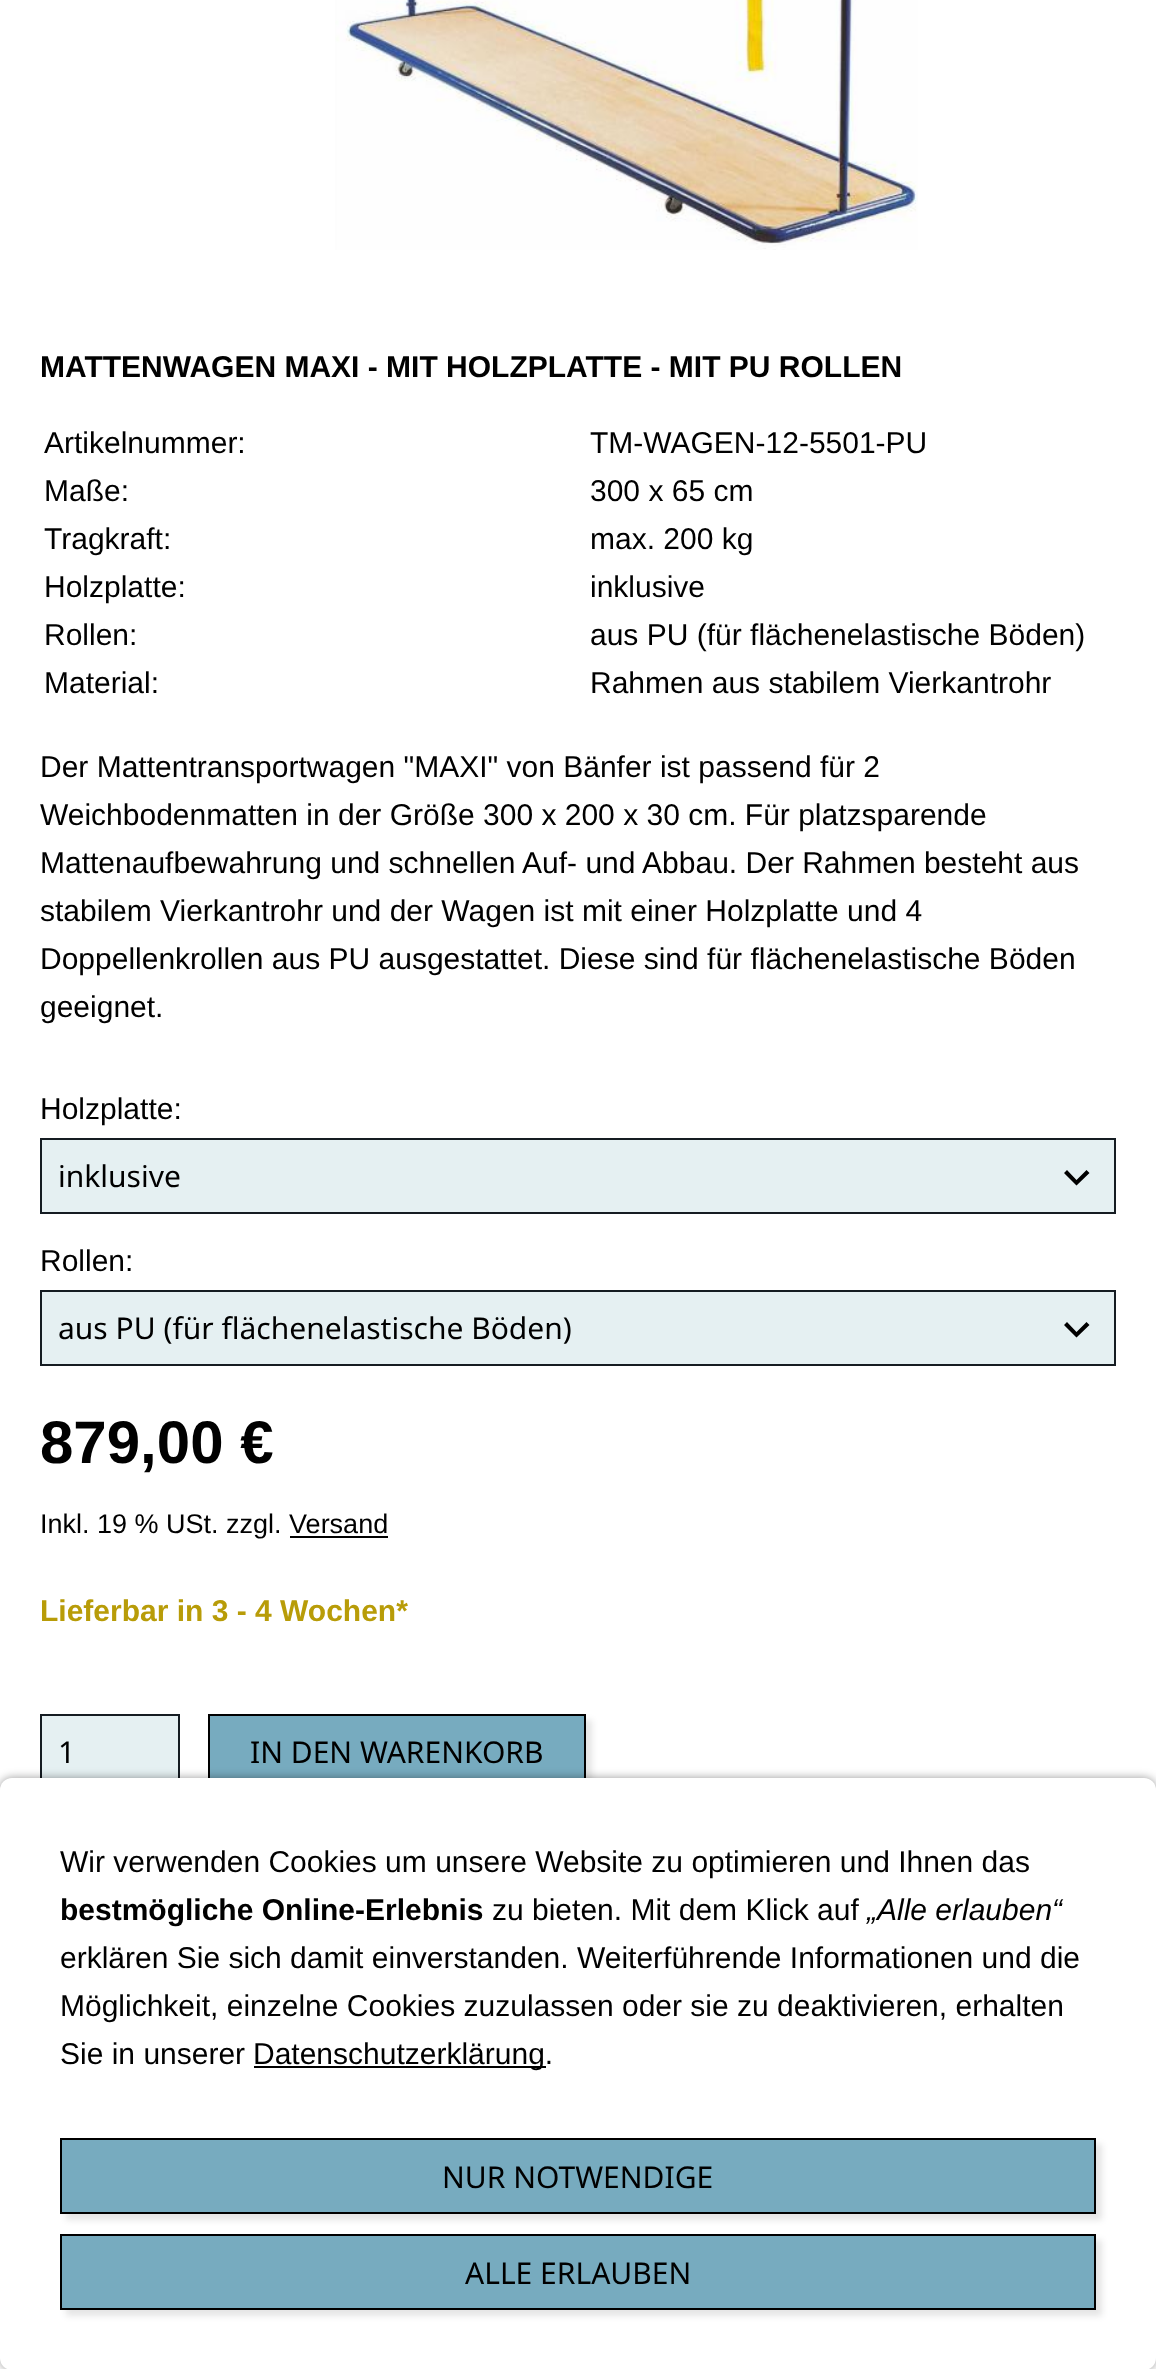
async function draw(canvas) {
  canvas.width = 1156
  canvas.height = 2369
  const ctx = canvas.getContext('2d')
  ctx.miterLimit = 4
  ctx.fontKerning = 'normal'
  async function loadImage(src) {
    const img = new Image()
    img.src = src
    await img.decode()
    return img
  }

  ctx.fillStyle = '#fff'
  ctx.fillRect(0, 0, 1156, 2369)
  ctx.drawImage(await loadImage('image0.png'), 335, 0, 583, 250)
  ctx.font = 'bold 30px Liberation Sans'
  ctx.fillStyle = '#000'
  ctx.fillText('MATTENWAGEN MAXI - MIT HOLZPLATTE - MIT PU ROLLEN', 40, 377)
  ctx.font = '30px Liberation Sans'
  ctx.fillText('Artikelnummer:', 44, 453)
  ctx.fillText('TM-WAGEN-12-5501-PU', 590, 453)
  ctx.fillText('Maße:', 44, 501)
  ctx.fillText('300 x 65 cm', 590, 501)
  ctx.fillText('Tragkraft:', 44, 549)
  ctx.fillText('max. 200 kg', 590, 549)
  ctx.fillText('Holzplatte:', 44, 597)
  ctx.fillText('inklusive', 590, 597)
  ctx.fillText('Rollen:', 44, 645)
  ctx.fillText('aus PU (für flächenelastische Böden)', 590, 645)
  ctx.fillText('Material:', 44, 693)
  ctx.fillText('Rahmen aus stabilem Vierkantrohr', 590, 693)
  ctx.fillText('Der Mattentransportwagen "MAXI" von Bänfer ist passend für 2', 40, 777)
  ctx.fillText('Weichbodenmatten in der Größe 300 x 200 x 30 cm. Für platzsparende', 40, 825)
  ctx.fillText('Mattenaufbewahrung und schnellen Auf- und Abbau. Der Rahmen besteht aus', 40, 873)
  ctx.fillText('stabilem Vierkantrohr und der Wagen ist mit einer Holzplatte und 4', 40, 921)
  ctx.fillText('Doppellenkrollen aus PU ausgestattet. Diese sind für flächenelastische Böden', 40, 969)
  ctx.fillText('geeignet.', 40, 1017)
  ctx.fillText('Holzplatte:', 40, 1119)
  ctx.fillStyle = '#e5f0f2'
  ctx.fillRect(42, 1140, 1072, 72)
  ctx.fillStyle = '#000'
  ctx.beginPath()
  ctx.moveTo(1076.5, 1185.5)
  ctx.lineTo(1064, 1173)
  ctx.lineTo(1067, 1170)
  ctx.lineTo(1076.5, 1180)
  ctx.lineTo(1086.5, 1170)
  ctx.lineTo(1089.5, 1173)
  ctx.closePath()
  ctx.fill()
  ctx.strokeStyle = '#151c22'
  ctx.lineWidth = 2
  ctx.strokeRect(41, 1139, 1074, 74)
  ctx.font = '30px Noto Sans'
  ctx.fillText('inklusive', 58, 1187)
  ctx.font = '30px Liberation Sans'
  ctx.fillText('Rollen:', 40, 1271)
  ctx.fillStyle = '#e5f0f2'
  ctx.fillRect(42, 1292, 1072, 72)
  ctx.fillStyle = '#000'
  ctx.beginPath()
  ctx.moveTo(1076.5, 1337.5)
  ctx.lineTo(1064, 1325)
  ctx.lineTo(1067, 1322)
  ctx.lineTo(1076.5, 1332)
  ctx.lineTo(1086.5, 1322)
  ctx.lineTo(1089.5, 1325)
  ctx.closePath()
  ctx.fill()
  ctx.strokeRect(41, 1291, 1074, 74)
  ctx.font = '30px Noto Sans'
  ctx.fillText('aus PU (für flächenelastische Böden)', 58, 1339)
  ctx.font = 'bold 60px Liberation Sans'
  ctx.fillText('879,00 €', 40, 1463)
  ctx.font = '27px Liberation Sans'
  ctx.fillText('Inkl. 19 % USt. zzgl. Versand', 40, 1533)
  ctx.fillRect(290, 1536, 98, 2)
  ctx.font = 'bold 30px Liberation Sans'
  ctx.fillStyle = '#b89c08'
  ctx.fillText('Lieferbar in 3 - 4 Wochen*', 40, 1621)
  ctx.fillStyle = '#e5f0f2'
  ctx.fillRect(42, 1716, 136, 62)
  ctx.strokeRect(41, 1715, 138, 70)
  ctx.font = '30px Noto Sans'
  ctx.fillStyle = '#000'
  ctx.fillText('1', 58, 1763)
  ctx.fillStyle = '#0000001a'
  ctx.filter = 'blur(3px)'
  ctx.beginPath()
  ctx.rect(214, 1720, 378, 72)
  ctx.fill()
  ctx.filter = 'none'
  ctx.fillStyle = '#77abbf'
  ctx.fillRect(210, 1716, 374, 62)
  ctx.strokeStyle = '#000'
  ctx.strokeRect(209, 1715, 376, 70)
  ctx.fillStyle = '#000'
  ctx.fillText('IN DEN WARENKORB', 250, 1763)
  ctx.fillStyle = '#00000066'
  ctx.filter = 'blur(5px)'
  ctx.beginPath()
  ctx.roundRect(0, 1778, 1156, 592, 12)
  ctx.fill()
  ctx.filter = 'none'
  ctx.fillStyle = '#fff'
  ctx.beginPath()
  ctx.roundRect(0, 1778, 1156, 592, 12)
  ctx.fill()
  ctx.font = '30px Liberation Sans'
  ctx.fillStyle = '#000'
  ctx.fillText('Wir verwenden Cookies um unsere Website zu optimieren und Ihnen das', 60, 1872)
  ctx.font = 'bold 30px Liberation Sans'
  ctx.fillText('bestmögliche Online-Erlebnis', 60, 1920)
  ctx.font = '30px Liberation Sans'
  ctx.fillText('zu bieten. Mit dem Klick auf', 492, 1920)
  ctx.font = 'italic 30px Liberation Sans'
  ctx.fillText('„Alle erlauben“', 867, 1920)
  ctx.font = '30px Liberation Sans'
  ctx.fillText('erklären Sie sich damit einverstanden. Weiterführende Informationen und die', 60, 1968)
  ctx.fillText('Möglichkeit, einzelne Cookies zuzulassen oder sie zu deaktivieren, erhalten', 60, 2016)
  ctx.fillText('Sie in unserer', 60, 2064)
  ctx.fillRect(254, 2066, 292, 2)
  ctx.fillText('Datenschutzerklärung.', 253, 2064)
  ctx.fillStyle = '#0000001a'
  ctx.filter = 'blur(3px)'
  ctx.beginPath()
  ctx.rect(66, 2144, 1036, 76)
  ctx.fill()
  ctx.filter = 'none'
  ctx.fillStyle = '#77abbf'
  ctx.beginPath()
  ctx.rect(61, 2139, 1034, 74)
  ctx.fill()
  ctx.stroke()
  ctx.font = '30px Noto Sans'
  ctx.fillStyle = '#000'
  ctx.fillText('NUR NOTWENDIGE', 442, 2188)
  ctx.fillStyle = '#0000001a'
  ctx.filter = 'blur(3px)'
  ctx.beginPath()
  ctx.rect(66, 2240, 1036, 76)
  ctx.fill()
  ctx.filter = 'none'
  ctx.fillStyle = '#77abbf'
  ctx.beginPath()
  ctx.rect(61, 2235, 1034, 74)
  ctx.fill()
  ctx.stroke()
  ctx.fillStyle = '#000'
  ctx.fillText('ALLE ERLAUBEN', 465, 2284)
}

draw(document.querySelector('canvas'))
